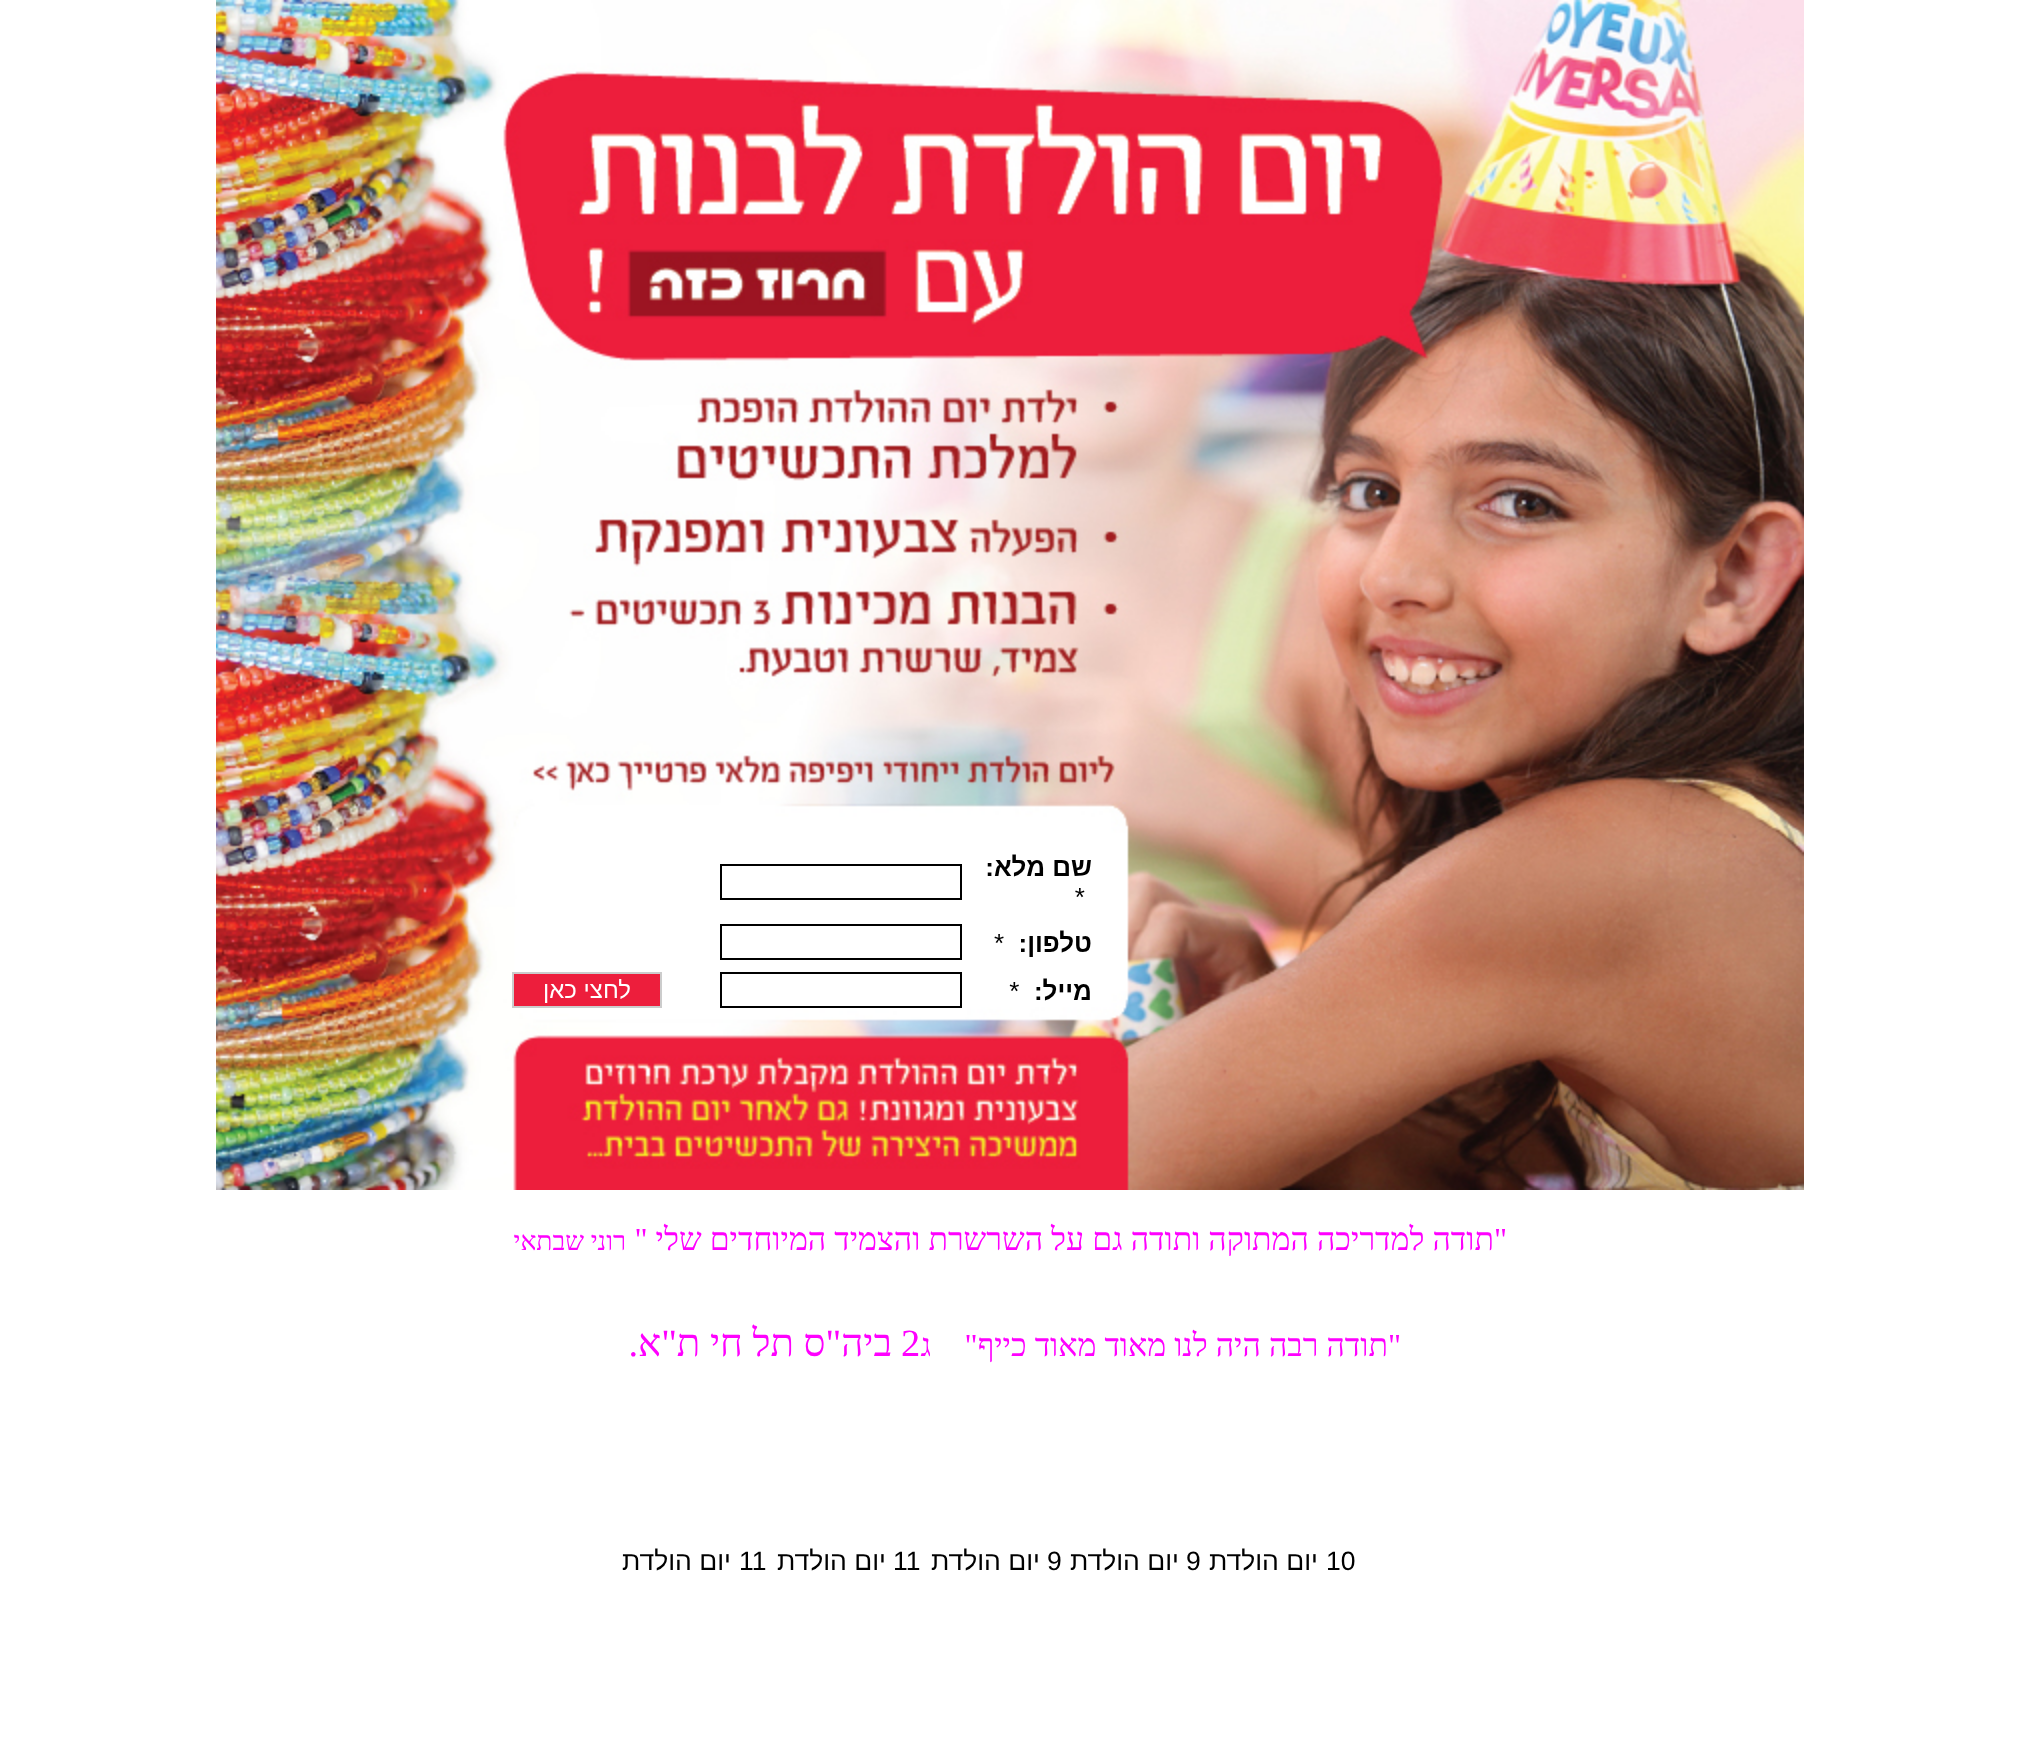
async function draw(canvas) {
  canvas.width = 2019
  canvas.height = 1744
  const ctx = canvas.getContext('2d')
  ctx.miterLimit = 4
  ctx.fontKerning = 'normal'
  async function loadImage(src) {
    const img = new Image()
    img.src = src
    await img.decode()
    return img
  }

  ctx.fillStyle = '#fff'
  ctx.fillRect(0, 0, 2019, 1744)
  ctx.drawImage(await loadImage('image0.png'), 216, 0, 1588, 1190)
  ctx.drawImage(await loadImage('image1.png'), 512, 854, 579, 154)
  ctx.direction = 'rtl'
  ctx.font = '32px Liberation Serif'
  ctx.fillStyle = '#f0f'
  ctx.fillText('"תודה למדריכה המתוקה ותודה גם על השרשרת והצמיד המיוחדים שלי "', 1507, 1250)
  ctx.font = '26.5px Liberation Serif'
  ctx.fillText('רוני', 626, 1250)
  ctx.fillText('שבתאי', 584, 1250)
  ctx.font = '32px Liberation Serif'
  ctx.fillText('"תודה רבה היה לנו מאוד מאוד כייף"', 1401, 1356)
  ctx.fillText('ג', 931, 1356)
  ctx.direction = 'ltr'
  ctx.font = '38.5px Liberation Serif'
  ctx.fillText('2', 901, 1356)
  ctx.direction = 'rtl'
  ctx.fillText('ביה"ס תל חי ת"א.', 892, 1356)
  ctx.direction = 'ltr'
  ctx.font = '26.5px Liberation Sans'
  ctx.fillStyle = '#000'
  ctx.fillText('10', 1326, 1570)
  ctx.direction = 'rtl'
  ctx.fillText('יום הולדת', 1318, 1570)
  ctx.direction = 'ltr'
  ctx.fillText('9', 1186, 1570)
  ctx.direction = 'rtl'
  ctx.fillText('יום הולדת', 1179, 1570)
  ctx.direction = 'ltr'
  ctx.fillText('9', 1047, 1570)
  ctx.direction = 'rtl'
  ctx.fillText('יום הולדת', 1040, 1570)
  ctx.direction = 'ltr'
  ctx.fillText('11', 893, 1570)
  ctx.direction = 'rtl'
  ctx.fillText('יום הולדת', 886, 1570)
  ctx.direction = 'ltr'
  ctx.fillText('11', 739, 1570)
  ctx.direction = 'rtl'
  ctx.fillText('יום הולדת', 731, 1570)
}

draw(document.querySelector('canvas'))
